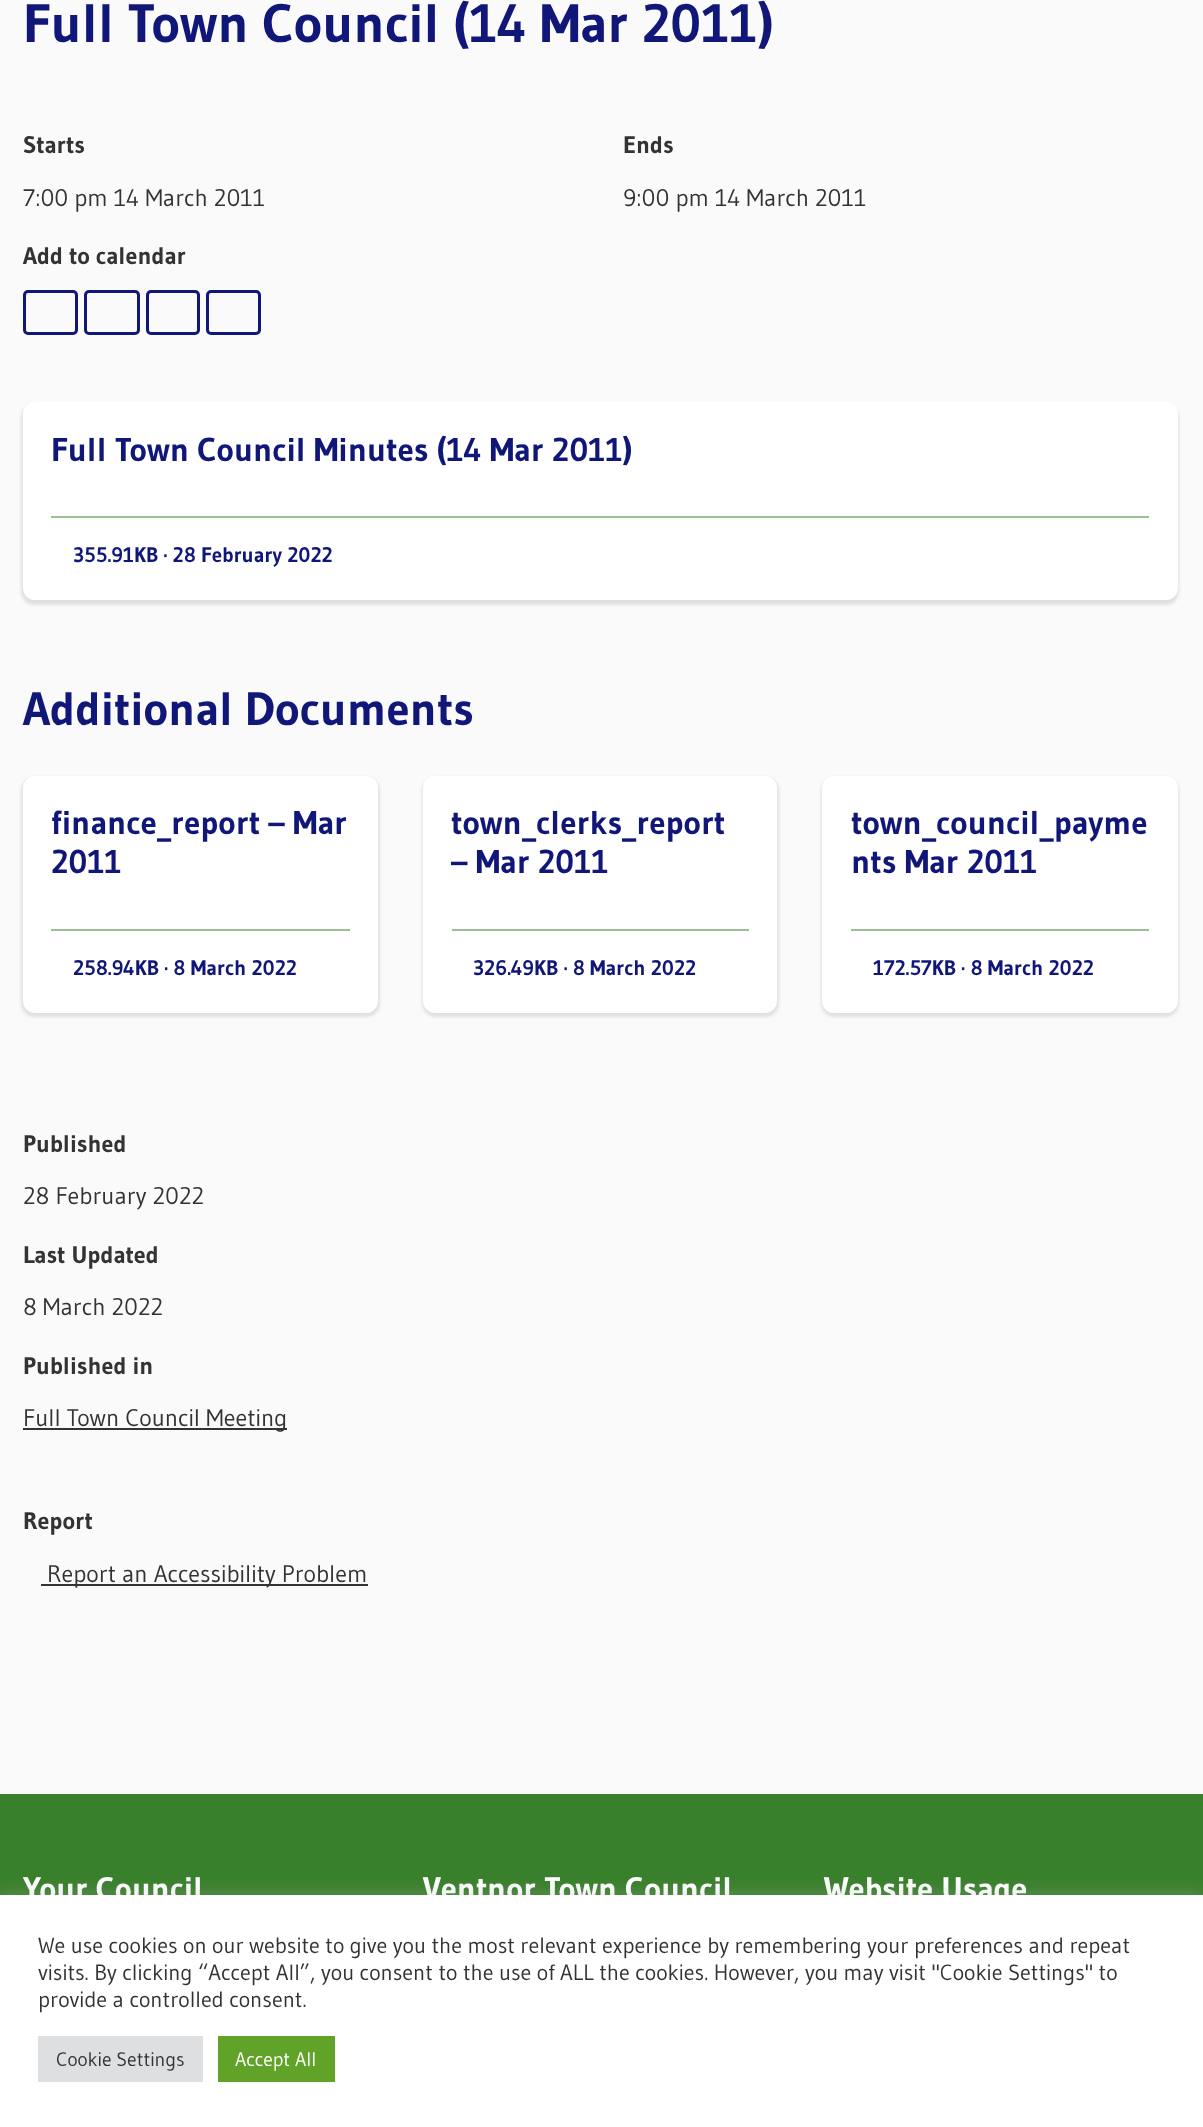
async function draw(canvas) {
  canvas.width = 1203
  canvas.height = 2127
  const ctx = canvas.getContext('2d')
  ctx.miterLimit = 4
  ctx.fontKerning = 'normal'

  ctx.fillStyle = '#fafafa'
  ctx.fillRect(0, 0, 1203, 2127)
  ctx.font = 'bold 54px Gudea'
  ctx.fillStyle = '#111779'
  ctx.fillText('Full Town Council (14 Mar 2011)', 23, 42)
  ctx.font = 'bold 24px Gudea'
  ctx.fillStyle = '#333'
  ctx.fillText('Starts', 23, 153)
  ctx.font = '24px Gudea'
  ctx.fillText('7:00 pm 14 March 2011', 23, 206)
  ctx.font = 'bold 24px Gudea'
  ctx.fillText('Ends', 623, 153)
  ctx.font = '24px Gudea'
  ctx.fillText('9:00 pm 14 March 2011', 623, 206)
  ctx.font = 'bold 24px Gudea'
  ctx.fillText('Add to calendar', 23, 264)
  ctx.beginPath()
  ctx.roundRect(24.5, 291.5, 52, 42, 3.5)
  ctx.strokeStyle = '#111779'
  ctx.lineWidth = 3
  ctx.stroke()
  ctx.beginPath()
  ctx.roundRect(85.5, 291.5, 53, 42, 3.5)
  ctx.stroke()
  ctx.beginPath()
  ctx.roundRect(147.5, 291.5, 51, 42, 3.5)
  ctx.stroke()
  ctx.beginPath()
  ctx.roundRect(207.5, 291.5, 52, 42, 3.5)
  ctx.stroke()
  ctx.fillStyle = '#0000001a'
  ctx.filter = 'blur(1.5px)'
  ctx.beginPath()
  ctx.roundRect(21, 404, 1158, 201, 14)
  ctx.fill()
  ctx.filter = 'none'
  ctx.fillStyle = '#fff'
  ctx.beginPath()
  ctx.roundRect(26, 405, 1149, 192, 9)
  ctx.fill()
  ctx.strokeStyle = '#fff'
  ctx.lineWidth = 6
  ctx.stroke()
  ctx.font = 'bold 33px Gudea'
  ctx.fillStyle = '#111779'
  ctx.fillText('Full Town Council Minutes (14 Mar 2011)', 51, 461)
  ctx.fillStyle = '#9cc096'
  ctx.fillRect(51, 516, 1098, 2)
  ctx.font = 'bold 21px Gudea'
  ctx.fillStyle = '#111779'
  ctx.fillText('355.91KB · 28 February 2022', 73, 562)
  ctx.font = 'bold 46.75px Gudea'
  ctx.fillText('Additional Documents', 23, 725)
  ctx.fillStyle = '#0000001a'
  ctx.filter = 'blur(1.5px)'
  ctx.beginPath()
  ctx.roundRect(21, 777, 359, 240, 14)
  ctx.fill()
  ctx.filter = 'none'
  ctx.fillStyle = '#fff'
  ctx.beginPath()
  ctx.roundRect(26, 779, 349, 231, 9)
  ctx.fill()
  ctx.stroke()
  ctx.font = 'bold 33px Gudea'
  ctx.fillStyle = '#111779'
  ctx.fillText('finance_report – Mar', 51, 834)
  ctx.fillText('2011', 51, 873)
  ctx.fillStyle = '#9cc096'
  ctx.fillRect(51, 929, 299, 2)
  ctx.font = 'bold 21px Gudea'
  ctx.fillStyle = '#111779'
  ctx.fillText('258.94KB · 8 March 2022', 73, 975)
  ctx.fillStyle = '#0000001a'
  ctx.filter = 'blur(1.5px)'
  ctx.beginPath()
  ctx.roundRect(422, 777, 357, 240, 14)
  ctx.fill()
  ctx.filter = 'none'
  ctx.fillStyle = '#fff'
  ctx.beginPath()
  ctx.roundRect(426, 779, 348, 231, 9)
  ctx.fill()
  ctx.stroke()
  ctx.font = 'bold 33px Gudea'
  ctx.fillStyle = '#111779'
  ctx.fillText('town_clerks_report', 451, 834)
  ctx.fillText('– Mar 2011', 451, 873)
  ctx.fillStyle = '#9cc096'
  ctx.fillRect(452, 929, 297, 2)
  ctx.font = 'bold 21px Gudea'
  ctx.fillStyle = '#111779'
  ctx.fillText('326.49KB · 8 March 2022', 473, 975)
  ctx.fillStyle = '#0000001a'
  ctx.filter = 'blur(1.5px)'
  ctx.beginPath()
  ctx.roundRect(821, 777, 358, 240, 14)
  ctx.fill()
  ctx.filter = 'none'
  ctx.fillStyle = '#fff'
  ctx.beginPath()
  ctx.roundRect(825, 779, 350, 231, 9)
  ctx.fill()
  ctx.stroke()
  ctx.font = 'bold 33px Gudea'
  ctx.fillStyle = '#111779'
  ctx.fillText('town_council_payme', 851, 834)
  ctx.fillText('nts Mar 2011', 851, 873)
  ctx.fillStyle = '#9cc096'
  ctx.fillRect(851, 929, 298, 2)
  ctx.font = 'bold 21px Gudea'
  ctx.fillStyle = '#111779'
  ctx.fillText('172.57KB · 8 March 2022', 873, 975)
  ctx.font = 'bold 24px Gudea'
  ctx.fillStyle = '#333'
  ctx.fillText('Published', 23, 1152)
  ctx.font = '24px Gudea'
  ctx.fillText('28 February 2022', 23, 1204)
  ctx.font = 'bold 24px Gudea'
  ctx.fillText('Last Updated', 23, 1263)
  ctx.font = '24px Gudea'
  ctx.fillText('8 March 2022', 23, 1315)
  ctx.font = 'bold 24px Gudea'
  ctx.fillText('Published in', 23, 1374)
  ctx.fillRect(23, 1428, 264, 2)
  ctx.font = '24px Gudea'
  ctx.fillText('Full Town Council Meeting', 23, 1426)
  ctx.font = 'bold 24px Gudea'
  ctx.fillText('Report', 23, 1529)
  ctx.fillRect(41, 1584, 327, 2)
  ctx.font = '24px Gudea'
  ctx.fillText('Report an Accessibility Problem', 47, 1582)
  ctx.fillStyle = '#39802c'
  ctx.fillRect(0, 1794, 1203, 101)
  ctx.font = 'bold 32.5px Gudea'
  ctx.fillStyle = '#fff'
  ctx.fillText('Your Council', 23, 1900)
  ctx.fillText('Ventnor Town Council', 423, 1900)
  ctx.fillText('Website Usage', 824, 1900)
  ctx.fillStyle = '#acabab4d'
  ctx.filter = 'blur(7.5px)'
  ctx.beginPath()
  ctx.rect(0, 1893, 1203, 233)
  ctx.fill()
  ctx.filter = 'none'
  ctx.fillStyle = '#fff'
  ctx.fillRect(0, 1895, 1203, 232)
  ctx.font = '22px Gudea'
  ctx.fillStyle = '#333'
  ctx.fillText('We use cookies on our website to give you the most relevant experience by remembering your preferences and repeat', 38, 1953)
  ctx.fillText('visits. By clicking “Accept All”, you consent to the use of ALL the cookies. However, you may visit "Cookie Settings" to', 38, 1980)
  ctx.fillText('provide a controlled consent.', 38, 2007)
  ctx.fillStyle = '#dedfe0'
  ctx.fillRect(38, 2036, 165, 46)
  ctx.font = '19.5px Gudea'
  ctx.fillStyle = '#333'
  ctx.fillText('Cookie Settings', 56, 2066)
  ctx.fillStyle = '#61a229'
  ctx.fillRect(218, 2036, 117, 46)
  ctx.fillStyle = '#fff'
  ctx.fillText('Accept All', 235, 2066)
}

draw(document.querySelector('canvas'))
